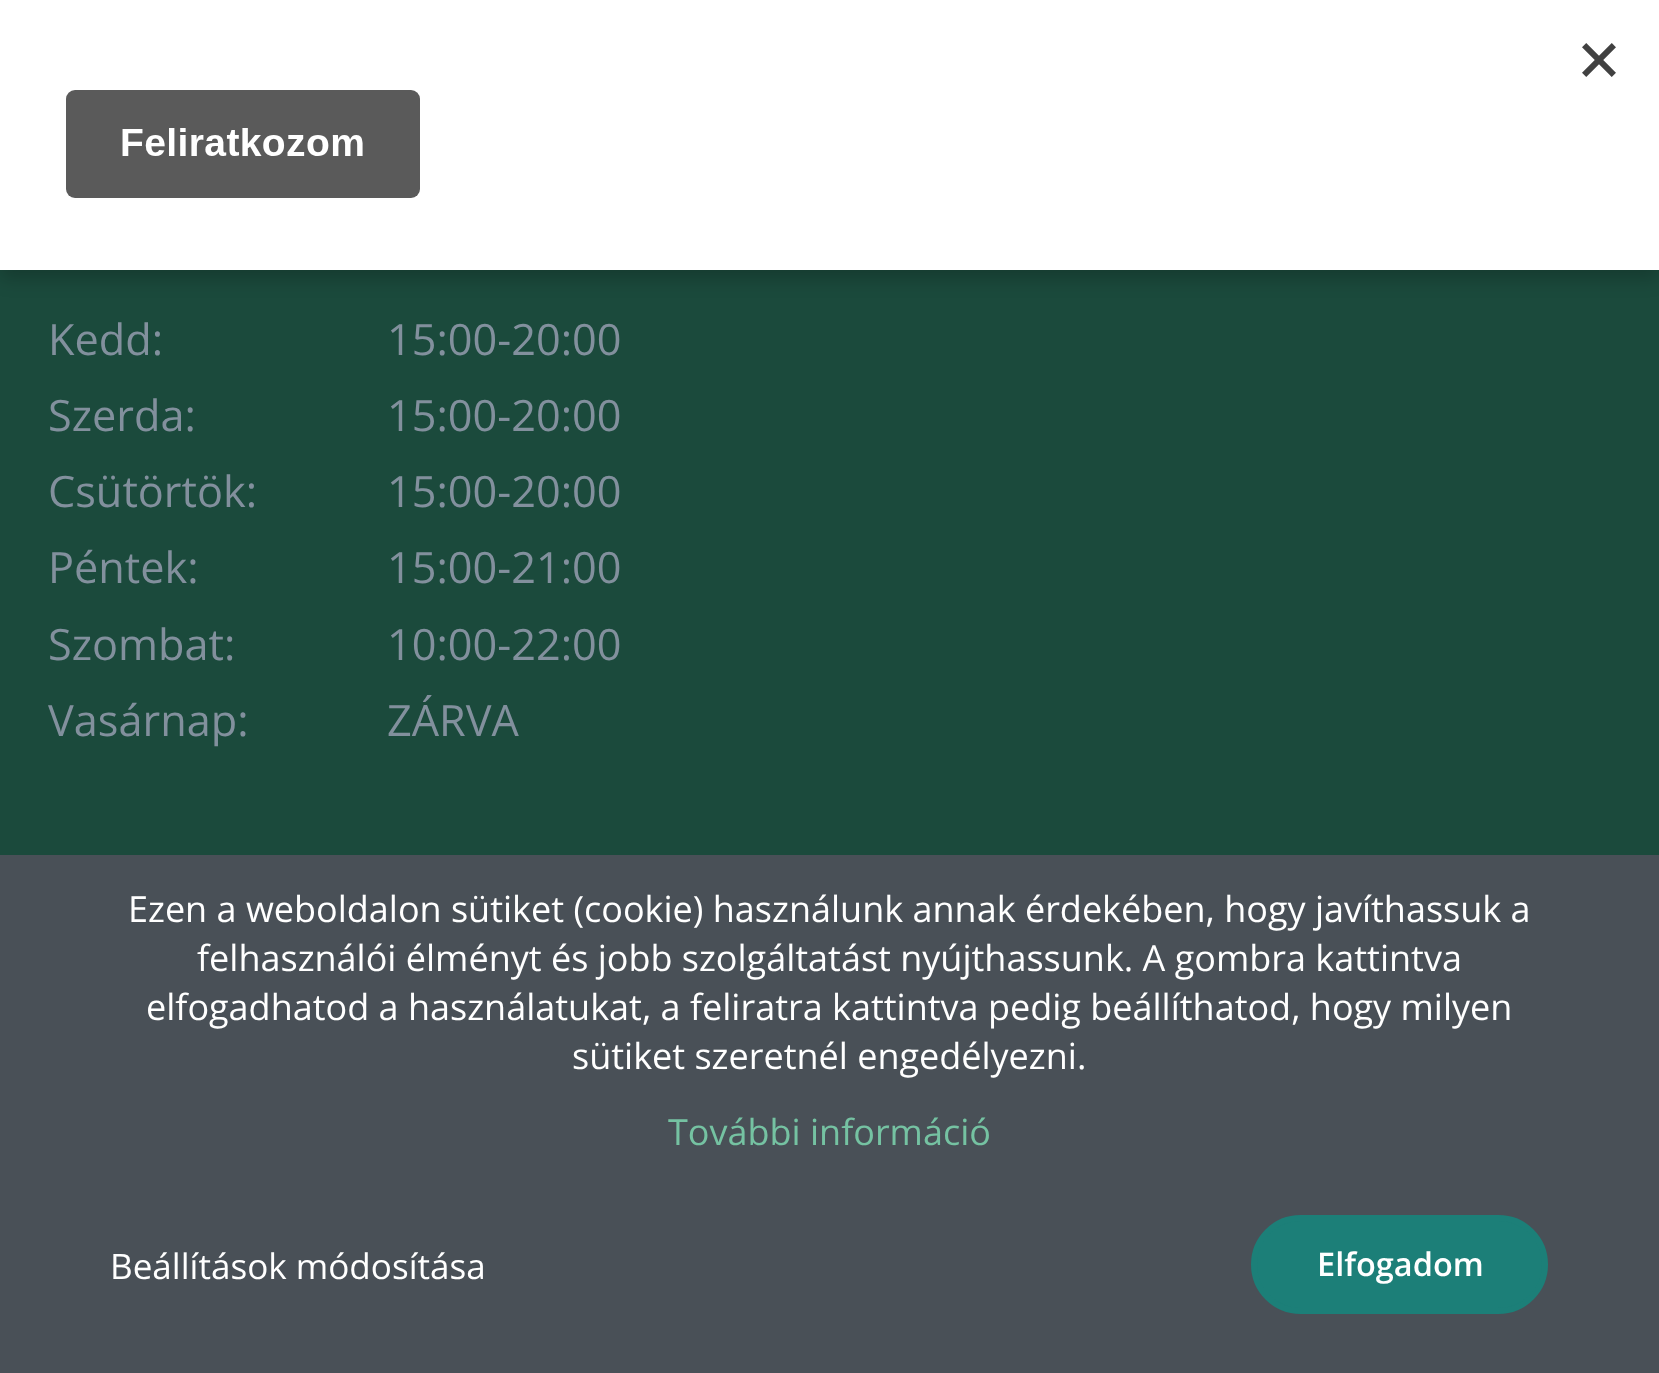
async function draw(canvas) {
  canvas.width = 1659
  canvas.height = 1373
  const ctx = canvas.getContext('2d')
  ctx.miterLimit = 4
  ctx.fontKerning = 'normal'
  async function loadImage(src) {
    const img = new Image()
    img.src = src
    await img.decode()
    return img
  }

  ctx.fillStyle = '#1b4a3c'
  ctx.fillRect(0, 0, 1659, 1373)
  ctx.fillStyle = '#00000033'
  ctx.filter = 'blur(9px)'
  ctx.beginPath()
  ctx.rect(0, 9, 1659, 270)
  ctx.fill()
  ctx.filter = 'none'
  ctx.fillStyle = '#fff'
  ctx.fillRect(0, 0, 1659, 270)
  ctx.drawImage(await loadImage('image0.png'), 66, 43, 1550, 155)
  ctx.font = '43.25px Open Sans'
  ctx.fillStyle = '#82909d'
  ctx.fillText('Kedd:', 48, 355)
  ctx.fillText('15:00-20:00', 387, 355)
  ctx.fillText('Szerda:', 48, 431)
  ctx.fillText('15:00-20:00', 387, 431)
  ctx.fillText('Csütörtök:', 48, 507)
  ctx.fillText('15:00-20:00', 387, 507)
  ctx.fillText('Péntek:', 48, 583)
  ctx.fillText('15:00-21:00', 387, 583)
  ctx.fillText('Szombat:', 48, 660)
  ctx.fillText('10:00-22:00', 387, 660)
  ctx.fillText('Vasárnap:', 48, 736)
  ctx.fillText('ZÁRVA', 387, 736)
  ctx.fillStyle = '#495057'
  ctx.fillRect(0, 855, 1659, 518)
  ctx.font = '36px Open Sans'
  ctx.fillStyle = '#fff'
  ctx.fillText('Ezen a weboldalon sütiket (cookie) használunk annak érdekében, hogy javíthassuk a', 128, 922)
  ctx.fillText('felhasználói élményt és jobb szolgáltatást nyújthassunk. A gombra kattintva', 197, 971)
  ctx.fillText('elfogadhatod a használatukat, a feliratra kattintva pedig beállíthatod, hogy milyen', 146, 1020)
  ctx.fillText('sütiket szeretnél engedélyezni.', 572, 1069)
  ctx.fillStyle = '#75c2a2'
  ctx.fillText('További információ', 668, 1145)
  ctx.font = '35.1px Open Sans'
  ctx.fillStyle = '#fff'
  ctx.fillText('Beállítások módosítása', 110, 1279)
  ctx.fillStyle = '#1c7f78'
  ctx.beginPath()
  ctx.roundRect(1254, 1218, 291, 93, 46.5)
  ctx.fill()
  ctx.strokeStyle = '#1c7f78'
  ctx.lineWidth = 6
  ctx.stroke()
  ctx.font = '600 32.5px Open Sans'
  ctx.fillStyle = '#fff'
  ctx.fillText('Elfogadom', 1317, 1276)
}

draw(document.querySelector('canvas'))
